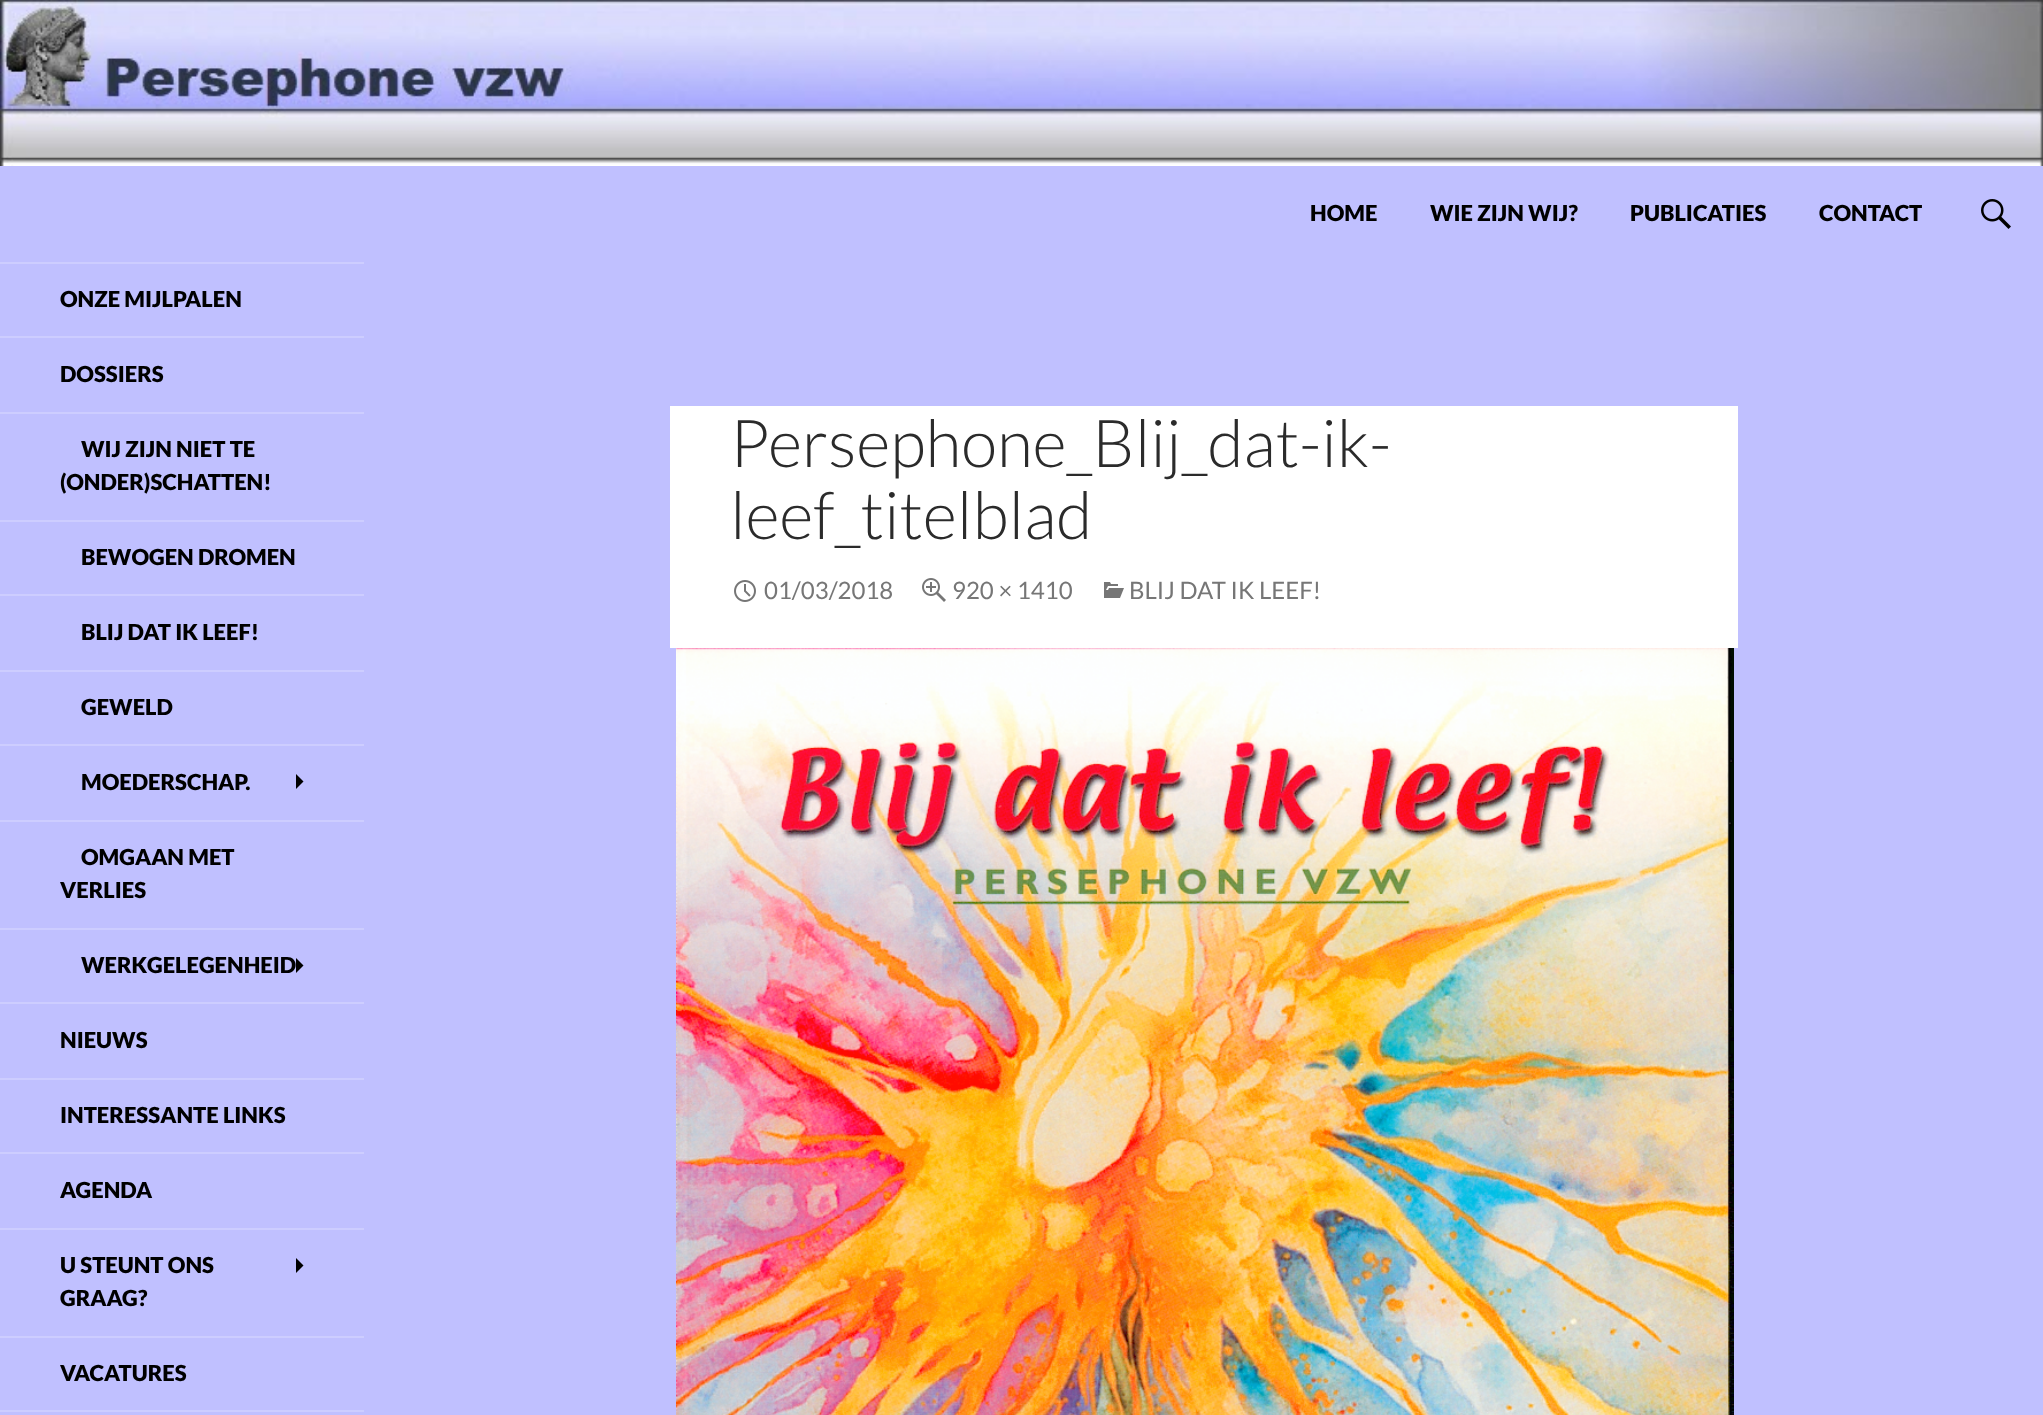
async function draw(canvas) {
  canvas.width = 2043
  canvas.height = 1415
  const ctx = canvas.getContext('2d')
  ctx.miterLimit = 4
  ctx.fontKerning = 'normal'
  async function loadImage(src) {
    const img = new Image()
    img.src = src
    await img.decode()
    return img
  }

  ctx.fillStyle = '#c0c0ff'
  ctx.fillRect(0, 0, 2043, 1415)
  ctx.drawImage(await loadImage('image0.png'), 0, 0, 2043, 166)
  ctx.font = '900 22px Lato'
  ctx.fillStyle = '#000'
  ctx.fillText('HOME', 1310, 221)
  ctx.fillText('WIE ZIJN WIJ?', 1430, 221)
  ctx.fillText('PUBLICATIES', 1630, 221)
  ctx.fillText('CONTACT', 1819, 221)
  ctx.drawImage(await loadImage('image1.png'), 1981, 199, 30, 30)
  ctx.fillStyle = '#cdcdff'
  ctx.fillRect(0, 262, 364, 2)
  ctx.fillStyle = '#000'
  ctx.fillText('ONZE MIJLPALEN', 60, 307)
  ctx.fillStyle = '#cdcdff'
  ctx.fillRect(0, 336, 364, 2)
  ctx.fillStyle = '#000'
  ctx.fillText('DOSSIERS', 60, 382)
  ctx.fillStyle = '#cdcdff'
  ctx.fillRect(0, 412, 364, 2)
  ctx.fillStyle = '#000'
  ctx.fillText('WIJ ZIJN NIET TE', 81, 457)
  ctx.fillText('(ONDER)SCHATTEN!', 60, 490)
  ctx.fillStyle = '#cdcdff'
  ctx.fillRect(0, 520, 364, 2)
  ctx.fillStyle = '#000'
  ctx.fillText('BEWOGEN DROMEN', 81, 565)
  ctx.fillStyle = '#cdcdff'
  ctx.fillRect(0, 594, 364, 2)
  ctx.fillStyle = '#000'
  ctx.fillText('BLIJ DAT IK LEEF!', 81, 640)
  ctx.fillStyle = '#cdcdff'
  ctx.fillRect(0, 670, 364, 2)
  ctx.fillStyle = '#000'
  ctx.fillText('GEWELD', 81, 715)
  ctx.fillStyle = '#cdcdff'
  ctx.fillRect(0, 744, 364, 2)
  ctx.fillStyle = '#000'
  ctx.fillText('MOEDERSCHAP.', 81, 790)
  ctx.beginPath()
  ctx.moveTo(296, 789)
  ctx.lineTo(303.5, 781.5)
  ctx.lineTo(296, 774)
  ctx.closePath()
  ctx.fill()
  ctx.fillStyle = '#cdcdff'
  ctx.fillRect(0, 820, 364, 2)
  ctx.fillStyle = '#000'
  ctx.fillText('OMGAAN MET', 81, 865)
  ctx.fillText('VERLIES', 60, 898)
  ctx.fillStyle = '#cdcdff'
  ctx.fillRect(0, 928, 364, 2)
  ctx.fillStyle = '#000'
  ctx.fillText('WERKGELEGENHEID', 81, 973)
  ctx.beginPath()
  ctx.moveTo(296, 973)
  ctx.lineTo(303.5, 965.5)
  ctx.lineTo(296, 958)
  ctx.closePath()
  ctx.fill()
  ctx.fillStyle = '#cdcdff'
  ctx.fillRect(0, 1002, 364, 2)
  ctx.fillStyle = '#000'
  ctx.fillText('NIEUWS', 60, 1048)
  ctx.fillStyle = '#cdcdff'
  ctx.fillRect(0, 1078, 364, 2)
  ctx.fillStyle = '#000'
  ctx.fillText('INTERESSANTE LINKS', 60, 1123)
  ctx.fillStyle = '#cdcdff'
  ctx.fillRect(0, 1152, 364, 2)
  ctx.fillStyle = '#000'
  ctx.fillText('AGENDA', 60, 1198)
  ctx.fillStyle = '#cdcdff'
  ctx.fillRect(0, 1228, 364, 2)
  ctx.fillStyle = '#000'
  ctx.fillText('U STEUNT ONS', 60, 1273)
  ctx.beginPath()
  ctx.moveTo(296, 1273)
  ctx.lineTo(303.5, 1265.5)
  ctx.lineTo(296, 1258)
  ctx.closePath()
  ctx.fill()
  ctx.fillText('GRAAG?', 60, 1306)
  ctx.fillStyle = '#cdcdff'
  ctx.fillRect(0, 1336, 364, 2)
  ctx.fillStyle = '#000'
  ctx.fillText('VACATURES', 60, 1381)
  ctx.fillStyle = '#cdcdff'
  ctx.fillRect(0, 1410, 364, 2)
  ctx.fillStyle = '#fff'
  ctx.fillRect(670, 406, 1068, 242)
  ctx.font = '300 66px Lato'
  ctx.fillStyle = '#2b2b2b'
  ctx.fillText('Persephone_Blij_dat-ik-', 730, 467)
  ctx.fillText('leef_titelblad', 730, 539)
  ctx.drawImage(await loadImage('image2.png'), 734, 580, 22, 22)
  ctx.font = '24px Lato'
  ctx.fillStyle = '#767676'
  ctx.fillText('01/03/2018', 764, 599)
  ctx.drawImage(await loadImage('image3.png'), 922, 578, 24, 24)
  ctx.fillText('920 × 1410', 952, 599)
  ctx.drawImage(await loadImage('image4.png'), 1104, 582, 20, 16)
  ctx.fillText('BLIJ DAT IK LEEF!', 1129, 599)
  ctx.drawImage(await loadImage('image5.png'), 676, 648, 1058, 767)
}

draw(document.querySelector('canvas'))
